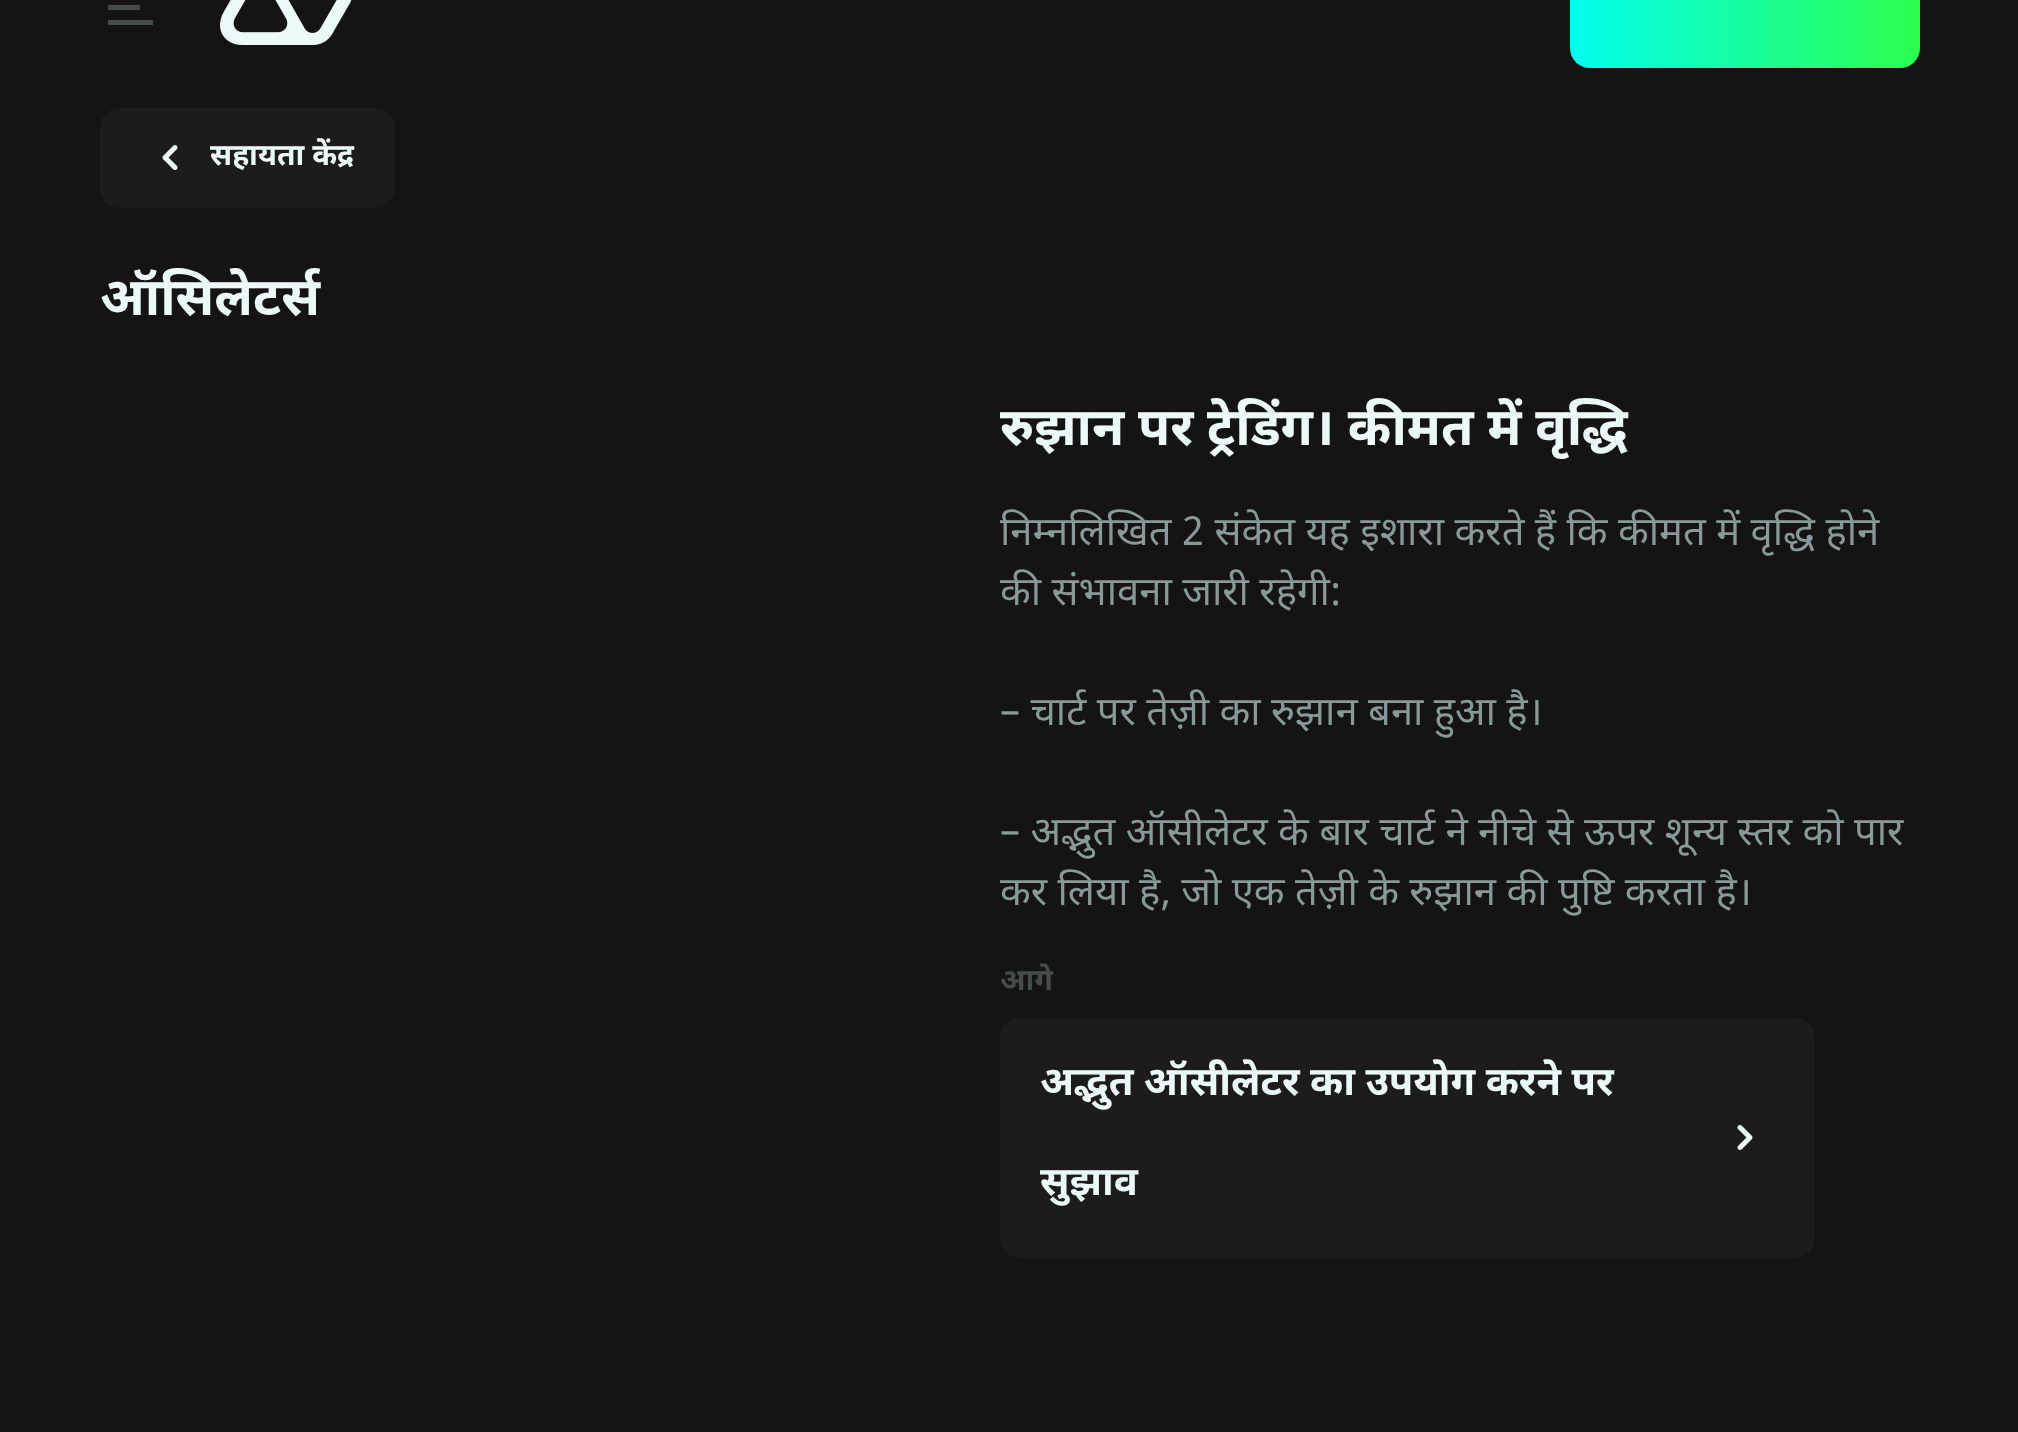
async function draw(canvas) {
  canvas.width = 2018
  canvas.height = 1432
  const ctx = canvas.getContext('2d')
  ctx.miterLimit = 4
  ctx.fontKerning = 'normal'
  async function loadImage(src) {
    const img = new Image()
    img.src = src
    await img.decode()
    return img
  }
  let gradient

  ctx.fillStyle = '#141414'
  ctx.fillRect(0, 0, 2018, 1432)
  ctx.fillStyle = '#464c4c'
  ctx.fillRect(108, 5, 32, 5)
  ctx.fillRect(108, 20, 45, 5)
  ctx.drawImage(await loadImage('image0.png'), 220, 0, 132, 45)
  gradient = ctx.createLinearGradient(1570, 7.5, 1920, 7.5)
  gradient.addColorStop(0, '#01feef')
  gradient.addColorStop(1, '#2dfe4d')
  ctx.fillStyle = gradient
  ctx.beginPath()
  ctx.roundRect(1570, -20, 350, 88, 20)
  ctx.fill()
  ctx.fillStyle = '#1c1c1c'
  ctx.beginPath()
  ctx.roundRect(100, 108, 295, 100, 20)
  ctx.fill()
  ctx.drawImage(await loadImage('image1.png'), 162, 145, 16, 25)
  ctx.font = 'bold 30px Noto Sans Devanagari'
  ctx.fillStyle = '#ecf9f9'
  ctx.fillText('सहायता केंद्र', 210, 165)
  ctx.font = 'bold 52.5px Noto Sans Devanagari'
  ctx.fillText('ऑसिलेटर्स', 100, 315)
  ctx.fillText('रुझान पर ट्रेडिंग। कीमत में वृद्धि', 1000, 445)
  ctx.font = '40px Noto Sans Devanagari'
  ctx.fillStyle = '#899898'
  ctx.fillText('निम्नलिखित 2 संकेत यह इशारा करते हैं कि कीमत में वृद्धि होने', 1000, 545)
  ctx.fillText('की संभावना जारी रहेगी:', 1000, 605)
  ctx.fillText('– चार्ट पर तेज़ी का रुझान बना हुआ है।', 1000, 725)
  ctx.fillText('– अद्भुत ऑसीलेटर के बार चार्ट ने नीचे से ऊपर शून्य स्तर को पार', 1000, 845)
  ctx.fillText('कर लिया है, जो एक तेज़ी के रुझान की पुष्टि करता है।', 1000, 905)
  ctx.font = 'bold 30px Noto Sans Devanagari'
  ctx.fillStyle = '#464c4c'
  ctx.fillText('आगे', 1000, 990)
  ctx.fillStyle = '#1c1c1c'
  ctx.beginPath()
  ctx.roundRect(1000, 1018, 815, 240, 20)
  ctx.fill()
  ctx.font = 'bold 40px Noto Sans Devanagari'
  ctx.fillStyle = '#ecf9f9'
  ctx.fillText('अद्भुत ऑसीलेटर का उपयोग करने पर', 1040, 1095)
  ctx.fillText('सुझाव', 1040, 1195)
  ctx.drawImage(await loadImage('image2.png'), 1737, 1125, 16, 25)
}

draw(document.querySelector('canvas'))
